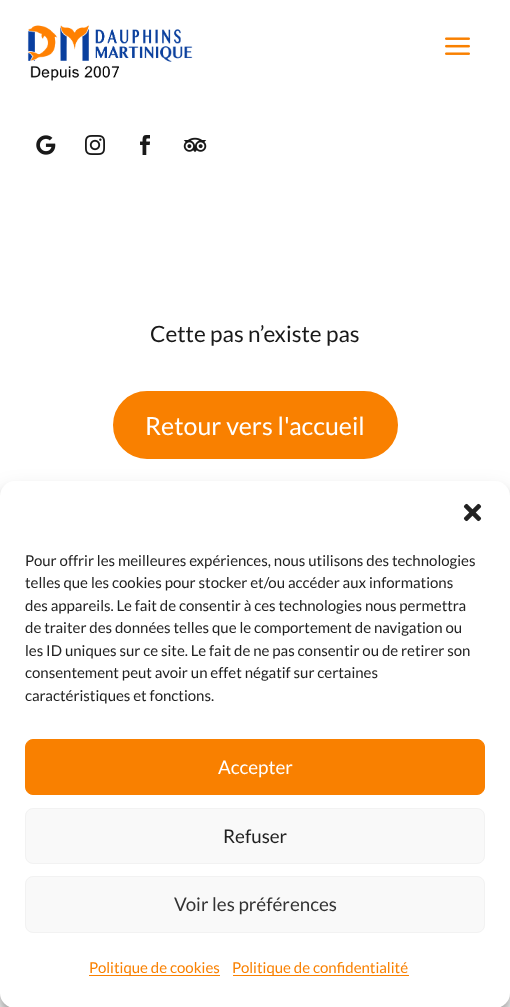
async function draw(canvas) {
  canvas.width = 510
  canvas.height = 1007
  const ctx = canvas.getContext('2d')
  ctx.miterLimit = 4
  ctx.fontKerning = 'normal'
  async function loadImage(src) {
    const img = new Image()
    img.src = src
    await img.decode()
    return img
  }

  ctx.fillStyle = '#fff'
  ctx.fillRect(0, 0, 510, 1007)
  ctx.drawImage(await loadImage('image0.png'), 27, 25, 166, 56)
  ctx.drawImage(await loadImage('image1.png'), 445, 37, 25, 18)
  ctx.fillStyle = '#0000004d'
  ctx.filter = 'blur(11px)'
  ctx.beginPath()
  ctx.roundRect(8, 940, 62, 64, 31)
  ctx.fill()
  ctx.filter = 'none'
  ctx.drawImage(await loadImage('image2.png'), 36, 135, 20, 20)
  ctx.drawImage(await loadImage('image3.png'), 85, 135, 20, 20)
  ctx.drawImage(await loadImage('image4.png'), 140, 135, 10, 20)
  ctx.drawImage(await loadImage('image5.png'), 183, 137, 24, 16)
  ctx.font = '22.5px Lato'
  ctx.fillStyle = '#191919'
  ctx.fillText('Cette pas n’existe pas', 150, 342)
  ctx.fillStyle = '#f98000'
  ctx.beginPath()
  ctx.roundRect(114.5, 392.5, 282, 65, 32.5)
  ctx.fill()
  ctx.strokeStyle = '#f98000'
  ctx.lineWidth = 3
  ctx.stroke()
  ctx.font = '25px Lato'
  ctx.fillStyle = '#fff'
  ctx.fillText('Retour vers l\'accueil', 145, 435)
  ctx.fillStyle = '#0000003b'
  ctx.filter = 'blur(4px)'
  ctx.beginPath()
  ctx.roundRect(0, 489, 510, 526, 15)
  ctx.fill()
  ctx.filter = 'none'
  ctx.fillStyle = '#00000030'
  ctx.filter = 'blur(12.5px)'
  ctx.beginPath()
  ctx.roundRect(0, 494, 510, 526, 15)
  ctx.fill()
  ctx.filter = 'none'
  ctx.fillStyle = '#fff'
  ctx.beginPath()
  ctx.roundRect(0, 481, 510, 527, 15)
  ctx.fill()
  ctx.drawImage(await loadImage('image6.png'), 463, 503, 19, 19)
  ctx.font = '15px Lato'
  ctx.fillStyle = '#222'
  ctx.fillText('Pour offrir les meilleures expériences, nous utilisons des technologies', 25, 566)
  ctx.fillText('telles que les cookies pour stocker et/ou accéder aux informations', 25, 588)
  ctx.fillText('des appareils. Le fait de consentir à ces technologies nous permettra', 25, 611)
  ctx.fillText('de traiter des données telles que le comportement de navigation ou', 25, 633)
  ctx.fillText('les ID uniques sur ce site. Le fait de ne pas consentir ou de retirer son', 25, 656)
  ctx.fillText('consentement peut avoir un effet négatif sur certaines', 25, 678)
  ctx.fillText('caractéristiques et fonctions.', 25, 701)
  ctx.fillStyle = '#f98000'
  ctx.beginPath()
  ctx.roundRect(25.5, 739.5, 459, 55, 7.5)
  ctx.fill()
  ctx.lineWidth = 1
  ctx.stroke()
  ctx.font = '18.75px Lato'
  ctx.fillStyle = '#fff'
  ctx.fillText('Accepter', 218, 774)
  ctx.fillStyle = '#f9f9f9'
  ctx.beginPath()
  ctx.roundRect(25.5, 808.5, 459, 55, 7.5)
  ctx.fill()
  ctx.strokeStyle = '#f2f2f2'
  ctx.stroke()
  ctx.fillStyle = '#222'
  ctx.fillText('Refuser', 223, 843)
  ctx.fillStyle = '#f9f9f9'
  ctx.beginPath()
  ctx.roundRect(25.5, 876.5, 459, 56, 7.5)
  ctx.fill()
  ctx.stroke()
  ctx.fillStyle = '#333'
  ctx.fillText('Voir les préférences', 174, 911)
  ctx.fillStyle = '#f98000'
  ctx.fillRect(89, 975, 131, 1)
  ctx.font = '15px Lato'
  ctx.fillText('Politique de cookies', 89, 973)
  ctx.fillRect(233, 975, 176, 1)
  ctx.fillText('Politique de confidentialité', 232, 973)
}

draw(document.querySelector('canvas'))
